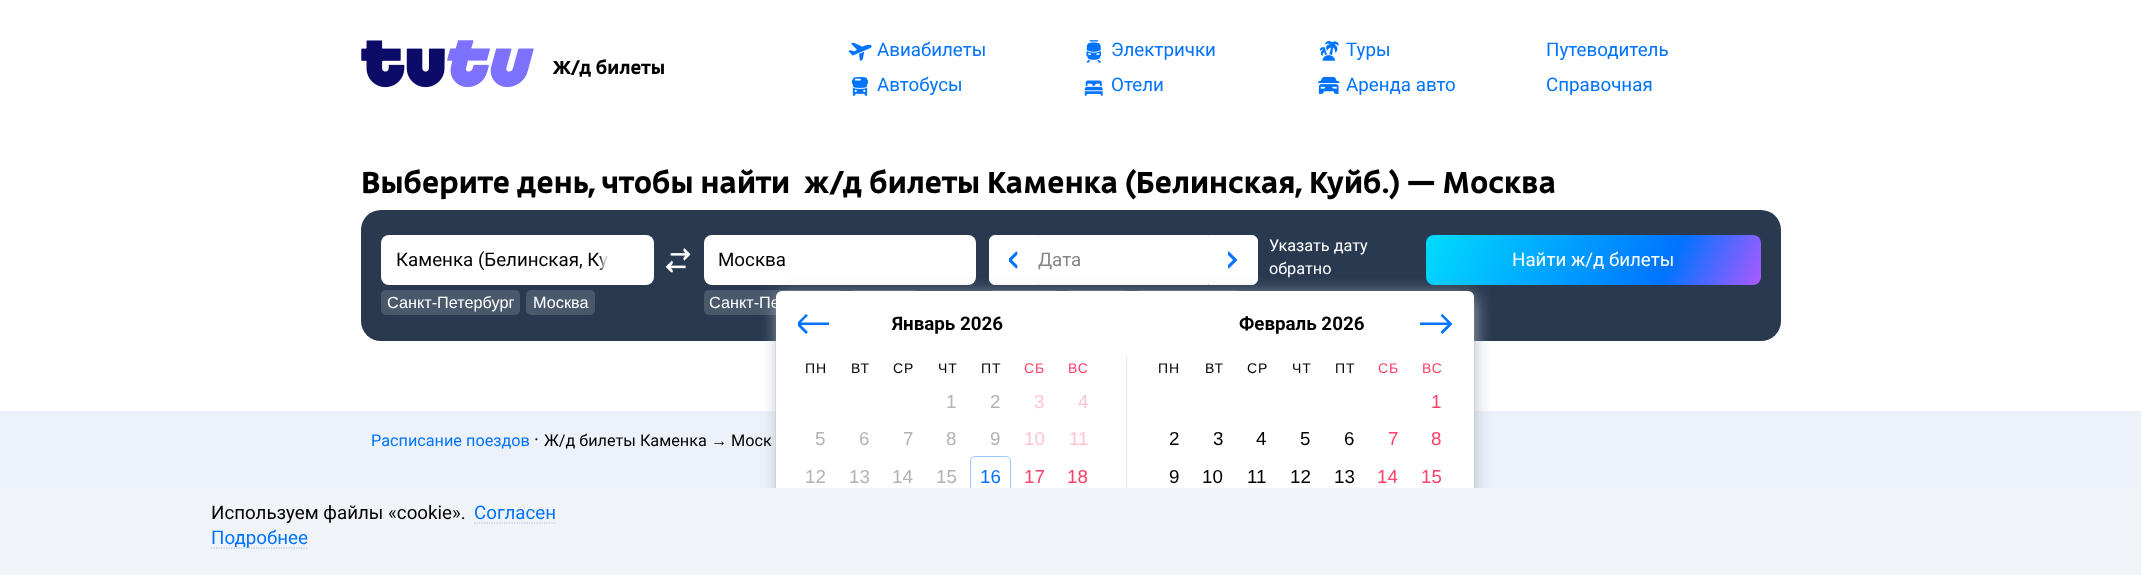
async function draw(canvas) {
  canvas.width = 2141
  canvas.height = 575
  const ctx = canvas.getContext('2d')
  ctx.miterLimit = 4
  ctx.fontKerning = 'normal'
  async function loadImage(src) {
    const img = new Image()
    img.src = src
    await img.decode()
    return img
  }
  let gradient

  ctx.fillStyle = '#fff'
  ctx.fillRect(0, 0, 2141, 575)
  ctx.drawImage(await loadImage('image0.png'), 361, 40, 173, 48)
  ctx.font = 'bold 18.75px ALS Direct'
  ctx.fillStyle = '#000'
  ctx.fillText('Ж/д билеты', 553, 74)
  ctx.drawImage(await loadImage('image1.png'), 848, 42, 24, 19)
  ctx.font = '18.75px Roboto'
  ctx.fillStyle = '#0073ff'
  ctx.fillText('Авиабилеты', 877, 56)
  ctx.drawImage(await loadImage('image2.png'), 851, 77, 18, 19)
  ctx.fillText('Автобусы', 877, 91)
  ctx.drawImage(await loadImage('image3.png'), 1086, 40, 16, 23)
  ctx.fillText('Электрички', 1111, 56)
  ctx.drawImage(await loadImage('image4.png'), 1084, 80, 19, 16)
  ctx.fillText('Отели', 1111, 91)
  ctx.drawImage(await loadImage('image5.png'), 1319, 41, 20, 20)
  ctx.fillText('Туры', 1346, 56)
  ctx.drawImage(await loadImage('image6.png'), 1318, 76, 22, 18)
  ctx.fillText('Аренда авто', 1346, 91)
  ctx.fillText('Путеводитель', 1546, 56)
  ctx.fillText('Справочная', 1546, 91)
  ctx.font = 'bold 30px ALS Direct'
  ctx.fillStyle = '#000'
  ctx.fillText('Выберите день, чтобы найти', 361, 193)
  ctx.fillText('ж/д билеты Каменка (Белинская, Куйб.) — Москва', 804, 193)
  ctx.fillStyle = '#293a50'
  ctx.beginPath()
  ctx.roundRect(361, 210, 1420, 131, 20)
  ctx.fill()
  ctx.fillStyle = '#fff'
  ctx.beginPath()
  ctx.roundRect(381, 235, 273, 50, 8)
  ctx.fill()
  ctx.font = '18.75px Roboto'
  ctx.fillStyle = '#000'
  ctx.fillText('Каменка (Белинская, Ку', 396, 266)
  gradient = ctx.createLinearGradient(639, 261, 599, 261)
  gradient.addColorStop(0, '#fff')
  gradient.addColorStop(0.5, '#fff')
  gradient.addColorStop(0.85, '#ffffffcc')
  gradient.addColorStop(1, '#ffffff00')
  ctx.fillStyle = gradient
  ctx.fillRect(599, 256, 9, 14)
  ctx.fillStyle = '#49586a'
  ctx.beginPath()
  ctx.roundRect(381, 290, 139, 25, 5)
  ctx.fill()
  ctx.font = '16.25px Liberation Sans'
  ctx.fillStyle = '#fff'
  ctx.fillText('Санкт-Петербург', 387, 308)
  ctx.fillStyle = '#49586a'
  ctx.beginPath()
  ctx.roundRect(526, 290, 69, 25, 5)
  ctx.fill()
  ctx.fillStyle = '#fff'
  ctx.fillText('Москва', 533, 308)
  ctx.drawImage(await loadImage('image7.png'), 665, 248, 26, 25)
  ctx.beginPath()
  ctx.roundRect(704, 235, 272, 50, 8)
  ctx.fill()
  ctx.font = '18.75px Roboto'
  ctx.fillStyle = '#000'
  ctx.fillText('Москва', 718, 266)
  ctx.fillStyle = '#49586a'
  ctx.beginPath()
  ctx.roundRect(704, 290, 139, 25, 5)
  ctx.fill()
  ctx.font = '16.25px Liberation Sans'
  ctx.fillStyle = '#fff'
  ctx.fillText('Санкт-Пе', 709, 308)
  ctx.fillStyle = '#49586a'
  ctx.beginPath()
  ctx.roundRect(849, 290, 69, 25, 5)
  ctx.fill()
  ctx.font = '16.25px Roboto'
  ctx.fillStyle = '#fff'
  ctx.fillText('Указать дату', 1269, 251)
  ctx.fillText('обратно', 1269, 274)
  gradient = ctx.createLinearGradient(1455, 173, 1826, 347)
  gradient.addColorStop(0, '#00dcff')
  gradient.addColorStop(0.57, '#0073ff')
  gradient.addColorStop(0.79, '#aa5aff')
  gradient.addColorStop(1, '#ff4169')
  ctx.fillStyle = gradient
  ctx.beginPath()
  ctx.roundRect(1426, 235, 335, 50, 8)
  ctx.fill()
  ctx.font = '18.75px Roboto'
  ctx.fillStyle = '#fff'
  ctx.fillText('Найти ж/д билеты', 1512, 266)
  ctx.beginPath()
  ctx.roundRect(989.5, 235.5, 49, 49, [5.5, 0, 0, 5.5])
  ctx.fill()
  ctx.strokeStyle = '#fff'
  ctx.stroke()
  ctx.drawImage(await loadImage('image8.png'), 1009, 251, 9, 18)
  ctx.fillRect(1039, 235, 169, 50)
  ctx.fillStyle = '#868684'
  ctx.fillText('Дата', 1038, 266)
  ctx.fillStyle = '#fff'
  ctx.beginPath()
  ctx.roundRect(1208.5, 235.5, 49, 49, [0, 5.5, 5.5, 0])
  ctx.fill()
  ctx.stroke()
  ctx.drawImage(await loadImage('image9.png'), 1228, 251, 10, 18)
  ctx.fillStyle = '#49586a'
  ctx.beginPath()
  ctx.roundRect(989, 290, 70, 25, 5)
  ctx.fill()
  ctx.beginPath()
  ctx.roundRect(1065, 290, 64, 25, 5)
  ctx.fill()
  ctx.beginPath()
  ctx.roundRect(1135, 290, 106, 25, 5)
  ctx.fill()
  ctx.fillStyle = '#edf2fa'
  ctx.fillRect(0, 411, 2141, 77)
  ctx.beginPath()
  ctx.roundRect(775.5, 290.5, 699, 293, 7.5)
  ctx.strokeStyle = '#42617b1a'
  ctx.stroke()
  ctx.fillStyle = '#adb6c1'
  ctx.filter = 'blur(9px)'
  ctx.beginPath()
  ctx.roundRect(779, 296, 695, 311, 5)
  ctx.fill()
  ctx.filter = 'none'
  ctx.fillStyle = '#fff'
  ctx.beginPath()
  ctx.roundRect(776, 291, 698, 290, 6)
  ctx.fill()
  ctx.save()
  ctx.beginPath()
  ctx.rect(798, 314, 32, 20)
  ctx.clip()
  ctx.fillStyle = '#0073ff'
  ctx.beginPath()
  ctx.moveTo(806, 314)
  ctx.lineTo(808, 315.5)
  ctx.lineTo(801, 322.5)
  ctx.lineTo(829, 322.5)
  ctx.lineTo(829, 325)
  ctx.lineTo(801, 325)
  ctx.lineTo(808, 332)
  ctx.lineTo(806, 334)
  ctx.lineTo(796, 324)
  ctx.closePath()
  ctx.fill()
  ctx.restore()
  ctx.fillStyle = '#0073ff'
  ctx.beginPath()
  ctx.moveTo(1442.5, 314)
  ctx.lineTo(1440.5, 315.5)
  ctx.lineTo(1447.5, 322.5)
  ctx.lineTo(1420, 322.5)
  ctx.lineTo(1420, 325)
  ctx.lineTo(1447.5, 325)
  ctx.lineTo(1440.5, 332)
  ctx.lineTo(1442.5, 334)
  ctx.lineTo(1452.5, 324)
  ctx.closePath()
  ctx.fill()
  ctx.font = 'bold 18.75px Roboto'
  ctx.fillStyle = '#000'
  ctx.fillText('Январь 2026', 892, 330)
  ctx.letterSpacing = '1px'
  ctx.font = '14px Liberation Sans'
  ctx.fillText('ПН', 805, 373)
  ctx.fillText('ВТ', 851, 373)
  ctx.fillText('СР', 893, 373)
  ctx.fillText('ЧТ', 938, 373)
  ctx.fillText('ПТ', 981, 373)
  ctx.fillStyle = '#ff4169'
  ctx.fillText('СБ', 1024, 373)
  ctx.fillText('ВС', 1068, 373)
  ctx.letterSpacing = '0px'
  ctx.font = '18.75px Liberation Sans'
  ctx.fillStyle = '#b3b3b3'
  ctx.fillText('1', 946, 408)
  ctx.fillText('2', 990, 408)
  ctx.fillStyle = '#ffc6d2'
  ctx.fillText('3', 1034, 408)
  ctx.fillText('4', 1078, 408)
  ctx.fillStyle = '#b3b3b3'
  ctx.fillText('5', 815, 445)
  ctx.fillText('6', 859, 445)
  ctx.fillText('7', 903, 445)
  ctx.fillText('8', 946, 445)
  ctx.fillText('9', 990, 445)
  ctx.fillStyle = '#ffc6d2'
  ctx.fillText('10', 1024, 445)
  ctx.fillText('11', 1069, 445)
  ctx.fillStyle = '#b3b3b3'
  ctx.fillText('12', 805, 483)
  ctx.fillText('13', 849, 483)
  ctx.fillText('14', 892, 483)
  ctx.fillText('15', 936, 483)
  ctx.beginPath()
  ctx.roundRect(970.5, 456.5, 40, 37, 4.5)
  ctx.strokeStyle = '#99c7ff'
  ctx.stroke()
  ctx.fillStyle = '#0073ff'
  ctx.fillText('16', 980, 483)
  ctx.fillStyle = '#ff4169'
  ctx.fillText('17', 1024, 483)
  ctx.fillText('18', 1067, 483)
  ctx.fillStyle = '#eaeae5'
  ctx.fillRect(1126, 356, 1, 132)
  ctx.font = 'bold 18.75px Roboto'
  ctx.fillStyle = '#000'
  ctx.fillText('Февраль 2026', 1239, 330)
  ctx.letterSpacing = '1px'
  ctx.font = '14px Liberation Sans'
  ctx.fillText('ПН', 1158, 373)
  ctx.fillText('ВТ', 1205, 373)
  ctx.fillText('СР', 1247, 373)
  ctx.fillText('ЧТ', 1292, 373)
  ctx.fillText('ПТ', 1335, 373)
  ctx.fillStyle = '#ff4169'
  ctx.fillText('СБ', 1378, 373)
  ctx.fillText('ВС', 1422, 373)
  ctx.letterSpacing = '0px'
  ctx.font = '18.75px Liberation Sans'
  ctx.fillText('1', 1431, 408)
  ctx.fillStyle = '#000'
  ctx.fillText('2', 1169, 445)
  ctx.fillText('3', 1213, 445)
  ctx.fillText('4', 1256, 445)
  ctx.fillText('5', 1300, 445)
  ctx.fillText('6', 1344, 445)
  ctx.fillStyle = '#ff4169'
  ctx.fillText('7', 1388, 445)
  ctx.fillText('8', 1431, 445)
  ctx.fillStyle = '#000'
  ctx.fillText('9', 1169, 483)
  ctx.fillText('10', 1202, 483)
  ctx.fillText('11', 1247, 483)
  ctx.fillText('12', 1290, 483)
  ctx.fillText('13', 1334, 483)
  ctx.fillStyle = '#ff4169'
  ctx.fillText('14', 1377, 483)
  ctx.fillText('15', 1421, 483)
  ctx.font = '16.25px Roboto'
  ctx.fillStyle = '#0073ff'
  ctx.fillText('Расписание поездов', 371, 446)
  ctx.font = '18.75px Roboto'
  ctx.fillStyle = '#000'
  ctx.fillText('·', 534, 446)
  ctx.font = '16.25px Roboto'
  ctx.fillText('Ж/д билеты Каменка', 544, 446)
  ctx.fillText('Моск', 731, 446)
  ctx.font = '16.25px Liberation Sans'
  ctx.fillText('→', 711, 446)
  ctx.fillStyle = '#f0f4f8'
  ctx.fillRect(0, 488, 2141, 87)
  ctx.font = '18.75px Roboto'
  ctx.fillStyle = '#000'
  ctx.fillText('Используем файлы «cookie».', 211, 519)
  ctx.beginPath()
  ctx.moveTo(474, 523)
  ctx.lineTo(556, 523)
  ctx.strokeStyle = '#a4bbd2'
  ctx.lineWidth = 1.2
  ctx.setLineDash([1.25, 1.25])
  ctx.stroke()
  ctx.fillStyle = '#0073ff'
  ctx.fillText('Согласен', 474, 519)
  ctx.beginPath()
  ctx.moveTo(211, 548)
  ctx.lineTo(307.5, 548)
  ctx.stroke()
  ctx.fillText('Подробнее', 211, 544)
}

draw(document.querySelector('canvas'))
